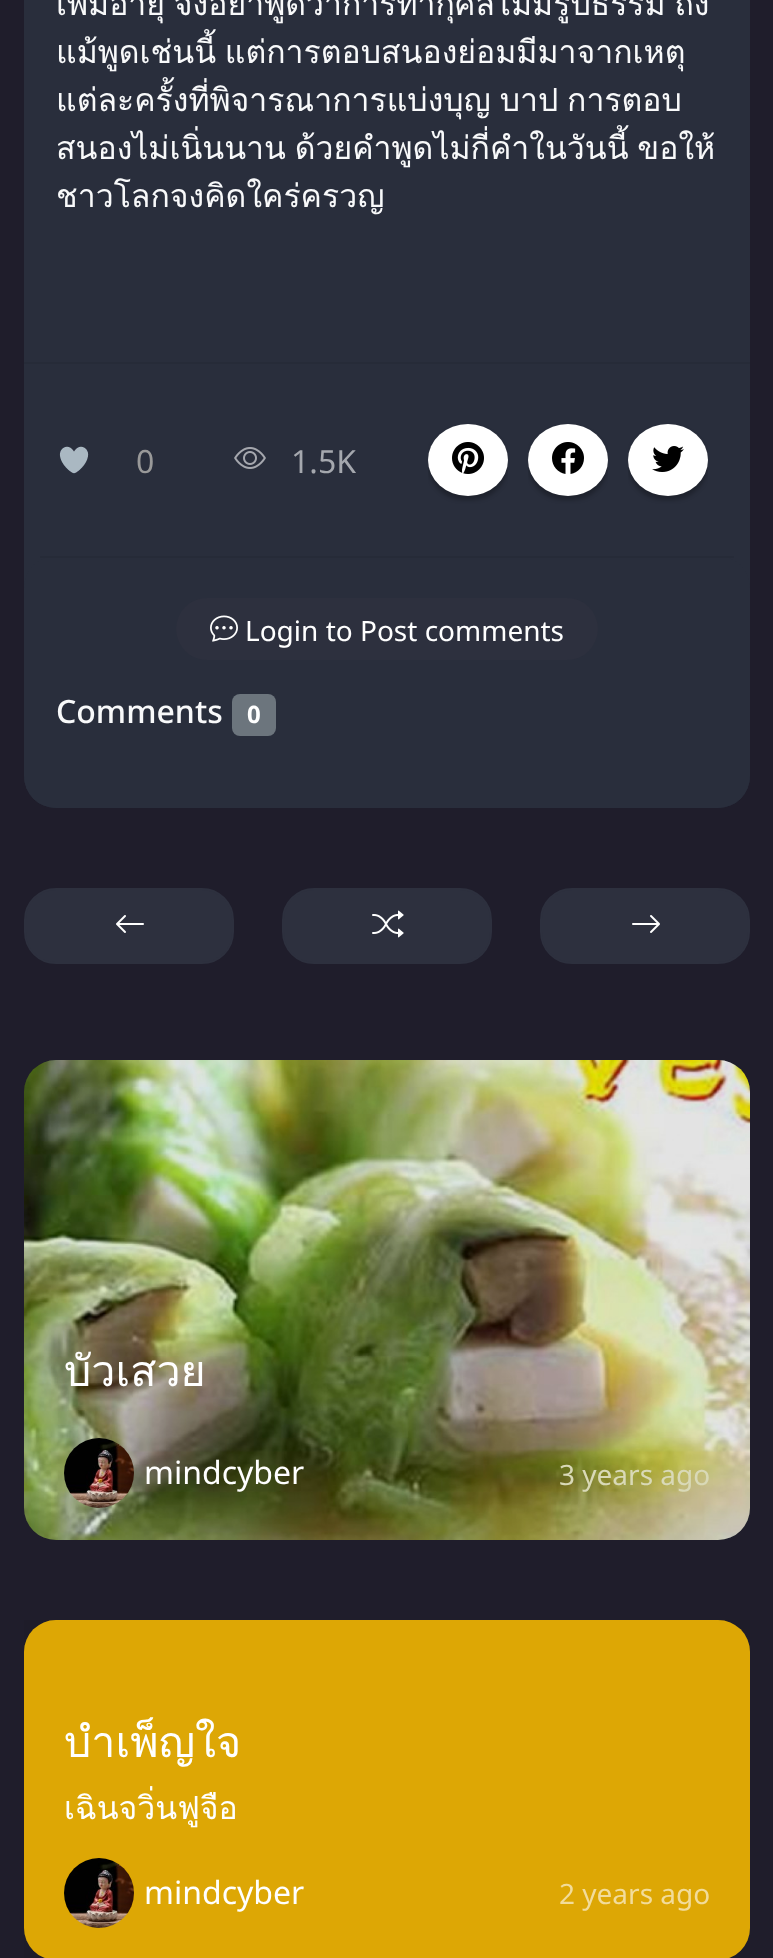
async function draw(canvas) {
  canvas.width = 773
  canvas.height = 1958
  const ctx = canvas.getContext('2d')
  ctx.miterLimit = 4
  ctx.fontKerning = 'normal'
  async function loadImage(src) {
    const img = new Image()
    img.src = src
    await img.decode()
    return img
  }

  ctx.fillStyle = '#1f1d2b'
  ctx.fillRect(0, 0, 773, 1958)
  ctx.fillStyle = '#292e3c'
  ctx.beginPath()
  ctx.roundRect(24, -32, 726, 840, 32)
  ctx.fill()
  ctx.wordSpacing = '-2px'
  ctx.font = '32px Loma'
  ctx.fillStyle = '#f8f9fa'
  ctx.fillText('เพิ่มอายุ จงอย่าพูดว่าการทำกุศลไม่มีรูปธรรม ถึง', 56, 15)
  ctx.fillText('แม้พูดเช่นนี้ แต่การตอบสนองย่อมมีมาจากเหตุ', 56, 63)
  ctx.fillText('แต่ละครั้งที่พิจารณาการแบ่งบุญ บาป การตอบ', 56, 111)
  ctx.fillText('สนองไม่เนิ่นนาน ด้วยคำพูดไม่กี่คำในวันนี้ ขอให้', 56, 159)
  ctx.wordSpacing = '0px'
  ctx.fillText('ชาวโลกจงคิดใคร่ครวญ', 56, 207)
  ctx.fillStyle = '#262b38'
  ctx.fillRect(24, 362, 726, 2)
  ctx.drawImage(await loadImage('image0.png'), 59, 446, 30, 28)
  ctx.font = '32px Noto Sans'
  ctx.fillStyle = '#999'
  ctx.fillText('0', 136, 473)
  ctx.drawImage(await loadImage('image1.png'), 234, 447, 32, 22)
  ctx.fillStyle = '#a5a8ae'
  ctx.fillText('1.5K', 291, 473)
  ctx.save()
  ctx.beginPath()
  ctx.rect(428, 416, 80, 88)
  ctx.clip()
  ctx.fillStyle = '#00000040'
  ctx.filter = 'blur(2px)'
  ctx.beginPath()
  ctx.roundRect(428, 428, 80, 72, 36)
  ctx.fill()
  ctx.filter = 'none'
  ctx.restore()
  ctx.fillStyle = '#fff'
  ctx.beginPath()
  ctx.ellipse(468, 460, 40, 36, 0, 0, 2 * Math.PI)
  ctx.fill()
  ctx.drawImage(await loadImage('image2.png'), 452, 442, 32, 32)
  ctx.save()
  ctx.beginPath()
  ctx.rect(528, 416, 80, 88)
  ctx.clip()
  ctx.fillStyle = '#00000040'
  ctx.filter = 'blur(2px)'
  ctx.beginPath()
  ctx.roundRect(528, 428, 80, 72, 36)
  ctx.fill()
  ctx.filter = 'none'
  ctx.restore()
  ctx.beginPath()
  ctx.ellipse(568, 460, 40, 36, 0, 0, 2 * Math.PI)
  ctx.fill()
  ctx.drawImage(await loadImage('image3.png'), 552, 442, 32, 32)
  ctx.save()
  ctx.beginPath()
  ctx.rect(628, 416, 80, 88)
  ctx.clip()
  ctx.fillStyle = '#00000040'
  ctx.filter = 'blur(2px)'
  ctx.beginPath()
  ctx.roundRect(628, 428, 80, 72, 36)
  ctx.fill()
  ctx.filter = 'none'
  ctx.restore()
  ctx.beginPath()
  ctx.ellipse(668, 460, 40, 36, 0, 0, 2 * Math.PI)
  ctx.fill()
  ctx.drawImage(await loadImage('image4.png'), 652, 446, 32, 26)
  ctx.fillStyle = '#292e3c'
  ctx.beginPath()
  ctx.roundRect(24, 556, 726, 252, 32)
  ctx.fill()
  ctx.fillStyle = '#262b38'
  ctx.fillRect(40, 556, 694, 2)
  ctx.fillStyle = '#2d303e'
  ctx.beginPath()
  ctx.roundRect(176, 598, 422, 62, 31)
  ctx.fill()
  ctx.drawImage(await loadImage('image5.png'), 210, 615, 28, 27)
  ctx.font = '28px Noto Sans'
  ctx.fillStyle = '#fff'
  ctx.fillText('Login to Post comments', 245, 641)
  ctx.font = '500 32px Noto Sans'
  ctx.fillStyle = '#f8f9fa'
  ctx.fillText('Comments', 56, 723)
  ctx.fillStyle = '#6c757d'
  ctx.beginPath()
  ctx.roundRect(232, 694, 44, 42, 8)
  ctx.fill()
  ctx.font = 'bold 24px Noto Sans'
  ctx.fillStyle = '#fff'
  ctx.fillText('0', 247, 723)
  ctx.fillStyle = '#2d303e'
  ctx.beginPath()
  ctx.roundRect(25, 889, 208, 74, 31)
  ctx.fill()
  ctx.strokeStyle = '#2d303e'
  ctx.lineWidth = 2
  ctx.stroke()
  ctx.drawImage(await loadImage('image6.png'), 116, 915, 28, 18)
  ctx.beginPath()
  ctx.roundRect(283, 889, 208, 74, 31)
  ctx.fill()
  ctx.stroke()
  ctx.drawImage(await loadImage('image7.png'), 372, 910, 32, 28)
  ctx.beginPath()
  ctx.roundRect(541, 889, 208, 74, 31)
  ctx.fill()
  ctx.stroke()
  ctx.drawImage(await loadImage('image8.png'), 632, 915, 28, 18)
  ctx.fillStyle = '#212529'
  ctx.beginPath()
  ctx.roundRect(24, 1060, 726, 480, 32)
  ctx.fill()
  ctx.drawImage(await loadImage('image9.png'), 24, 1060, 726, 480)
  ctx.fillStyle = '#0000001a'
  ctx.beginPath()
  ctx.roundRect(24, 1060, 726, 480, 32)
  ctx.fill()
  ctx.font = '43px Loma'
  ctx.fillStyle = '#fff'
  ctx.fillText('บัวเสวย', 64, 1386)
  ctx.drawImage(await loadImage('image10.png'), 64, 1438, 70, 70)
  ctx.font = '32px Noto Sans'
  ctx.fillText('mindcyber', 144, 1484)
  ctx.font = '28px Noto Sans'
  ctx.fillStyle = '#d9d9b7'
  ctx.fillText('3 years ago', 559, 1485)
  ctx.fillStyle = '#ffc107'
  ctx.beginPath()
  ctx.roundRect(24, 1620, 726, 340, 32)
  ctx.fill()
  ctx.fillStyle = '#00000008'
  ctx.fillRect(24, 1620, 726, 338)
  ctx.fillStyle = '#0000001a'
  ctx.beginPath()
  ctx.roundRect(24, 1620, 726, 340, 32)
  ctx.fill()
  ctx.font = '43px Loma'
  ctx.fillStyle = '#fff'
  ctx.fillText('บำเพ็ญใจ', 64, 1757)
  ctx.font = '32px Loma'
  ctx.fillText('เฉินจวิ่นฟูจือ', 64, 1819)
  ctx.drawImage(await loadImage('image11.png'), 64, 1858, 70, 70)
  ctx.font = '32px Noto Sans'
  ctx.fillText('mindcyber', 144, 1904)
  ctx.font = '28px Noto Sans'
  ctx.fillStyle = '#f2dc9b'
  ctx.fillText('2 years ago', 559, 1904)
}

draw(document.querySelector('canvas'))
